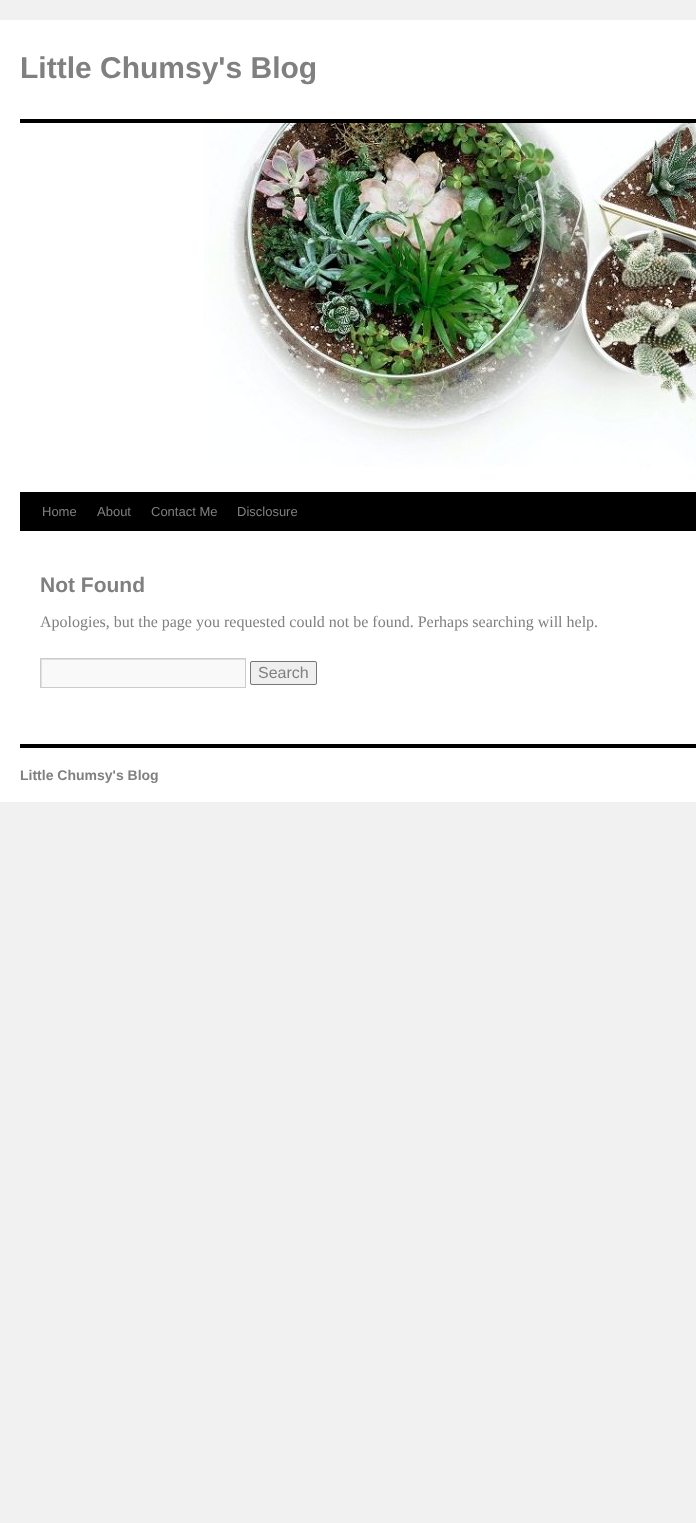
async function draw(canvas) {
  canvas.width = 696
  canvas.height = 1523
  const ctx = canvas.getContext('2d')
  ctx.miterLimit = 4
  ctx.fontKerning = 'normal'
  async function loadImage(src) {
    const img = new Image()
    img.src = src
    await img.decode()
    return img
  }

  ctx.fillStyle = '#f1f1f1'
  ctx.fillRect(0, 0, 696, 1523)
  ctx.fillStyle = '#fff'
  ctx.fillRect(0, 20, 696, 782)
  ctx.font = 'bold 30px Liberation Sans'
  ctx.fillStyle = '#808080'
  ctx.fillText('Little Chumsy\'s Blog', 20, 78)
  ctx.fillStyle = '#000'
  ctx.fillRect(20, 119, 676, 4)
  ctx.fillRect(20, 492, 676, 39)
  ctx.drawImage(await loadImage('image0.png'), 204, 123, 492, 344)
  ctx.font = '13px Liberation Sans'
  ctx.fillStyle = '#808080'
  ctx.fillText('Home', 42, 516)
  ctx.fillText('About', 97, 516)
  ctx.fillText('Contact Me', 151, 516)
  ctx.fillText('Disclosure', 237, 516)
  ctx.font = 'bold 21px Liberation Sans'
  ctx.fillText('Not Found', 40, 592)
  ctx.font = '16px Liberation Serif'
  ctx.fillText('Apologies, but the page you requested could not be found. Perhaps searching will help.', 40, 627)
  ctx.fillStyle = '#f9f9f9'
  ctx.fillRect(42, 660, 203, 27)
  ctx.save()
  ctx.beginPath()
  ctx.rect(41, 659, 204, 28)
  ctx.clip()
  ctx.fillStyle = '#e0e0e0'
  ctx.beginPath()
  ctx.moveTo(-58, 560)
  ctx.lineTo(344, 560)
  ctx.lineTo(344, 786)
  ctx.lineTo(-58, 786)
  ctx.closePath()
  ctx.moveTo(42, 660)
  ctx.lineTo(246, 660)
  ctx.lineTo(246, 688)
  ctx.lineTo(42, 688)
  ctx.closePath()
  ctx.fill('evenodd')
  ctx.restore()
  ctx.strokeStyle = '#ccc'
  ctx.strokeRect(40.5, 658.5, 205, 29)
  ctx.fillStyle = '#efefef'
  ctx.beginPath()
  ctx.roundRect(250.5, 661.5, 66, 23, 1.5)
  ctx.fill()
  ctx.strokeStyle = '#767676'
  ctx.stroke()
  ctx.font = '16px Liberation Sans'
  ctx.fillStyle = '#808080'
  ctx.fillText('Search', 258, 678)
  ctx.fillStyle = '#000'
  ctx.fillRect(20, 744, 676, 4)
  ctx.font = 'bold 14px Liberation Sans'
  ctx.fillStyle = '#808080'
  ctx.fillText('Little Chumsy\'s Blog', 20, 780)
}

draw(document.querySelector('canvas'))
